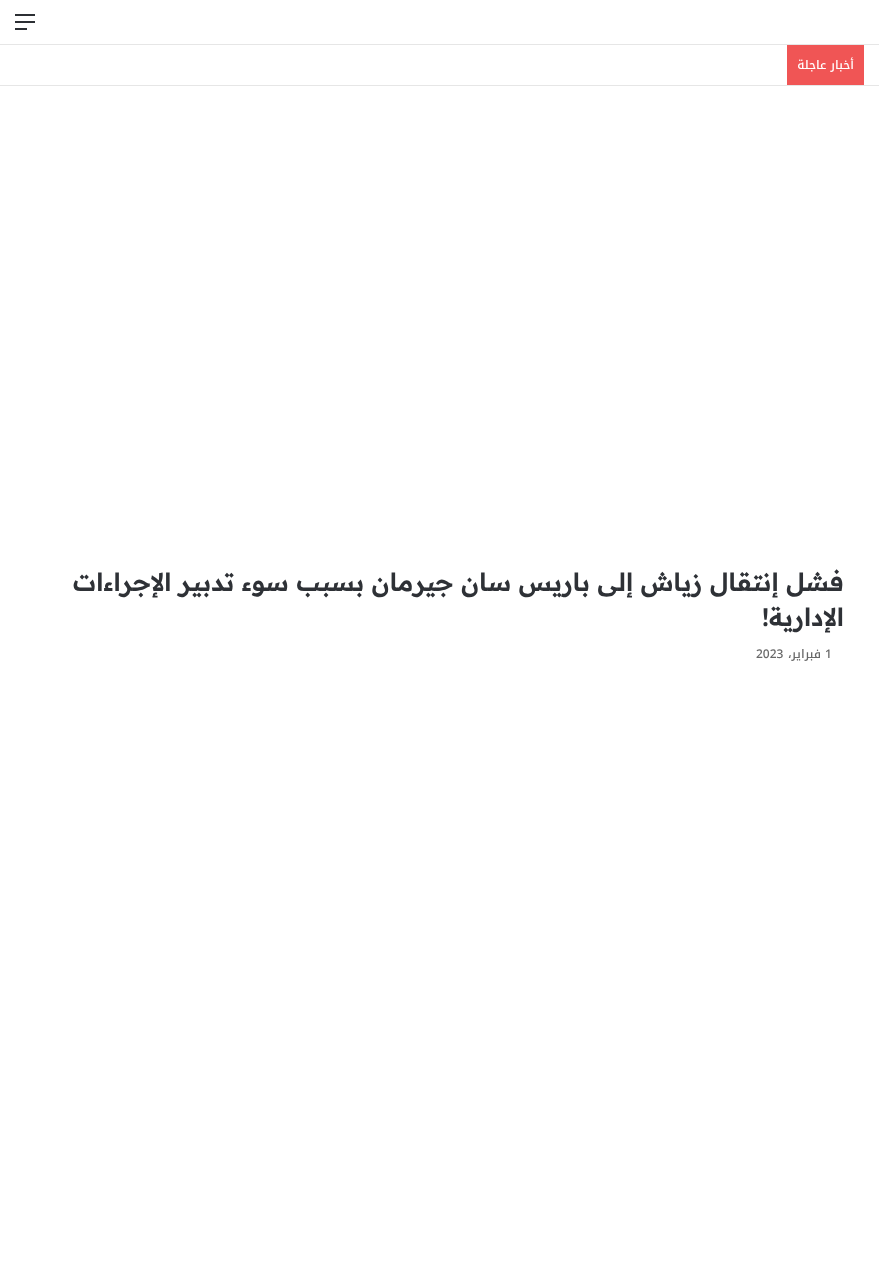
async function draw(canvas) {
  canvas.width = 879
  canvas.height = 1287
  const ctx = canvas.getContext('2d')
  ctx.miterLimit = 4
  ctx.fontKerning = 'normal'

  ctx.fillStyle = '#fff'
  ctx.fillRect(0, 0, 879, 1287)
  ctx.fillStyle = '#2c2f34'
  ctx.fillRect(15, 21, 20, 2)
  ctx.fillRect(15, 14, 20, 2)
  ctx.fillRect(15, 28, 12, 2)
  ctx.fillStyle = '#e6e6e6'
  ctx.fillRect(0, 44, 879, 1)
  ctx.fillRect(0, 85, 879, 1)
  ctx.fillStyle = '#f05555'
  ctx.fillRect(787, 45, 77, 40)
  ctx.direction = 'rtl'
  ctx.font = '500 12px Noto Kufi Arabic'
  ctx.fillStyle = '#fff'
  ctx.fillText('أخبار عاجلة', 854, 69)
  ctx.font = '600 25px Readex Pro'
  ctx.fillStyle = '#2e3136'
  ctx.fillText('فشل إنتقال زياش إلى باريس سان جيرمان بسبب سوء تدبير الإجراءات', 844, 591)
  ctx.fillText('الإدارية!', 844, 626)
  ctx.direction = 'ltr'
  ctx.font = '500 12px Noto Kufi Arabic'
  ctx.fillStyle = '#686868'
  ctx.fillText('1', 825, 658)
  ctx.direction = 'rtl'
  ctx.fillText('فبراير،', 821, 658)
  ctx.direction = 'ltr'
  ctx.fillText('2023', 756, 658)
}

draw(document.querySelector('canvas'))
